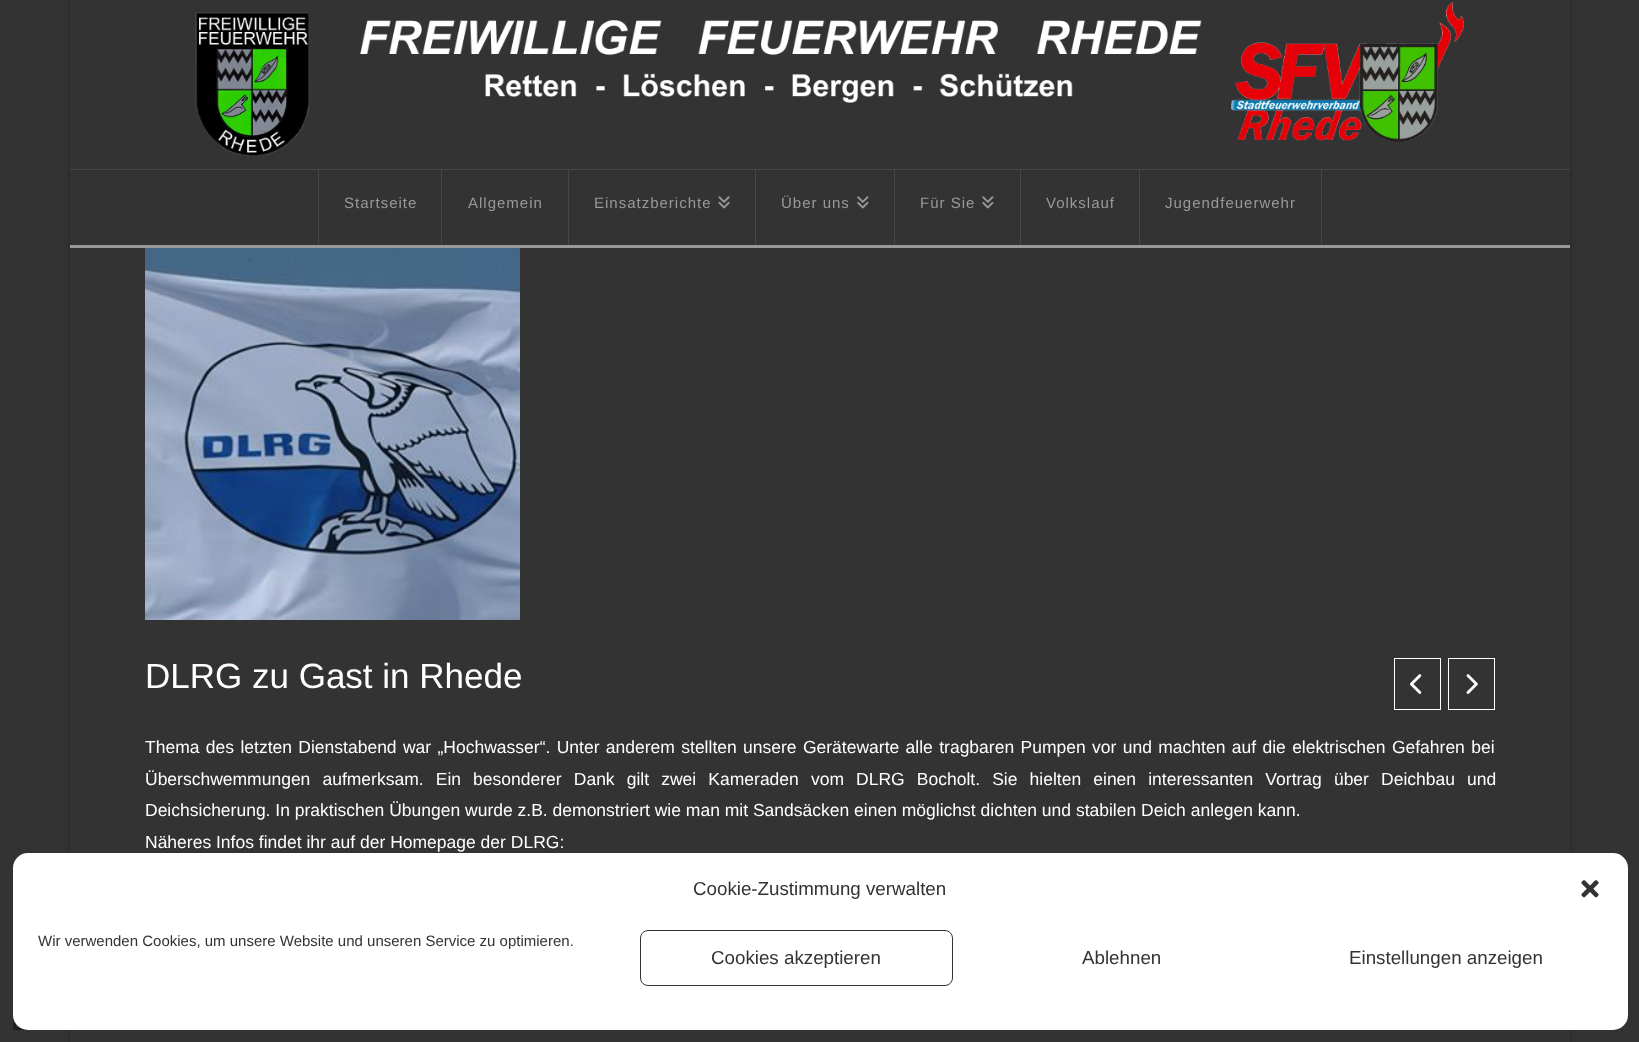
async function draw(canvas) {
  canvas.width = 1639
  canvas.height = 1042
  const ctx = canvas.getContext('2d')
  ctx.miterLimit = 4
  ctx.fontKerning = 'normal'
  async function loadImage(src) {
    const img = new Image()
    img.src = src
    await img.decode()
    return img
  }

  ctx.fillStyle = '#333'
  ctx.fillRect(0, 0, 1639, 1042)
  ctx.fillStyle = '#00000040'
  ctx.filter = 'blur(2.5px)'
  ctx.beginPath()
  ctx.rect(70, 1, 1500, 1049)
  ctx.fill()
  ctx.filter = 'none'
  ctx.fillStyle = '#333'
  ctx.fillRect(70, 0, 1500, 1042)
  ctx.fillStyle = '#474747'
  ctx.fillRect(70, 169, 1500, 1)
  ctx.drawImage(await loadImage('image0.png'), 195, 2, 1269, 155)
  ctx.fillStyle = '#999'
  ctx.fillRect(70, 245, 1500, 3)
  ctx.fillStyle = '#474747'
  ctx.fillRect(441, 170, 1, 75)
  ctx.fillRect(318, 170, 1, 75)
  ctx.letterSpacing = '1px'
  ctx.font = '15px Liberation Sans'
  ctx.fillStyle = '#999'
  ctx.fillText('Startseite', 344, 208)
  ctx.fillStyle = '#474747'
  ctx.fillRect(568, 170, 1, 75)
  ctx.fillStyle = '#999'
  ctx.fillText('Allgemein', 468, 208)
  ctx.fillStyle = '#474747'
  ctx.fillRect(755, 170, 1, 75)
  ctx.fillStyle = '#999'
  ctx.fillText('Einsatzberichte', 594, 208)
  ctx.drawImage(await loadImage('image1.png'), 718, 196, 12, 13)
  ctx.fillStyle = '#474747'
  ctx.fillRect(894, 170, 1, 75)
  ctx.fillStyle = '#999'
  ctx.fillText('Über uns', 781, 208)
  ctx.drawImage(await loadImage('image2.png'), 857, 196, 12, 13)
  ctx.fillStyle = '#474747'
  ctx.fillRect(1020, 170, 1, 75)
  ctx.fillStyle = '#999'
  ctx.fillText('Für Sie', 920, 208)
  ctx.drawImage(await loadImage('image2.png'), 982, 196, 12, 13)
  ctx.fillStyle = '#474747'
  ctx.fillRect(1139, 170, 1, 75)
  ctx.fillStyle = '#999'
  ctx.fillText('Volkslauf', 1046, 208)
  ctx.fillStyle = '#474747'
  ctx.fillRect(1321, 170, 1, 75)
  ctx.fillStyle = '#999'
  ctx.fillText('Jugendfeuerwehr', 1165, 208)
  ctx.drawImage(await loadImage('image3.png'), 145, 248, 375, 372)
  ctx.letterSpacing = '0px'
  ctx.font = '35px Liberation Sans'
  ctx.fillStyle = '#fff'
  ctx.fillText('DLRG zu Gast in Rhede', 145, 688)
  ctx.strokeStyle = '#fff'
  ctx.strokeRect(1394.5, 658.5, 46, 51)
  ctx.drawImage(await loadImage('image4.png'), 1410, 674, 12, 20)
  ctx.strokeRect(1448.5, 658.5, 46, 51)
  ctx.drawImage(await loadImage('image5.png'), 1466, 674, 12, 20)
  ctx.wordSpacing = '1.5px'
  ctx.font = '17.5px Liberation Sans'
  ctx.fillText('Thema des letzten Dienstabend war „Hochwasser“. Unter anderem stellten unsere Gerätewarte alle tragbaren Pumpen vor und machten auf die elektrischen Gefahren bei', 145, 753)
  ctx.wordSpacing = '7.25px'
  ctx.fillText('Überschwemmungen aufmerksam. Ein besonderer Dank gilt zwei Kameraden vom DLRG Bocholt. Sie hielten einen interessanten Vortrag über Deichbau und', 145, 785)
  ctx.wordSpacing = '0px'
  ctx.fillText('Deichsicherung. In praktischen Übungen wurde z.B. demonstriert wie man mit Sandsäcken einen möglichst dichten und stabilen Deich anlegen kann.', 145, 816)
  ctx.fillText('Näheres Infos findet ihr auf der Homepage der DLRG:', 145, 848)
  ctx.strokeStyle = '#202020'
  ctx.lineWidth = 3
  ctx.strokeRect(14.5, 987.5, 40, 41)
  ctx.beginPath()
  ctx.roundRect(13, 853, 1615, 177, 15)
  ctx.fill()
  ctx.font = '18.75px Liberation Sans'
  ctx.fillStyle = '#333'
  ctx.fillText('Cookie-Zustimmung verwalten', 693, 895)
  ctx.drawImage(await loadImage('image6.png'), 1581, 880, 18, 18)
  ctx.font = '15px Liberation Sans'
  ctx.fillText('Wir verwenden Cookies, um unsere Website und unseren Service zu optimieren.', 38, 946)
  ctx.beginPath()
  ctx.roundRect(640.5, 930.5, 312, 55, 7.5)
  ctx.strokeStyle = '#333'
  ctx.lineWidth = 1
  ctx.stroke()
  ctx.font = '18.75px Liberation Sans'
  ctx.fillText('Cookies akzeptieren', 711, 964)
  ctx.fillText('Ablehnen', 1082, 964)
  ctx.fillText('Einstellungen anzeigen', 1349, 964)
}

draw(document.querySelector('canvas'))
